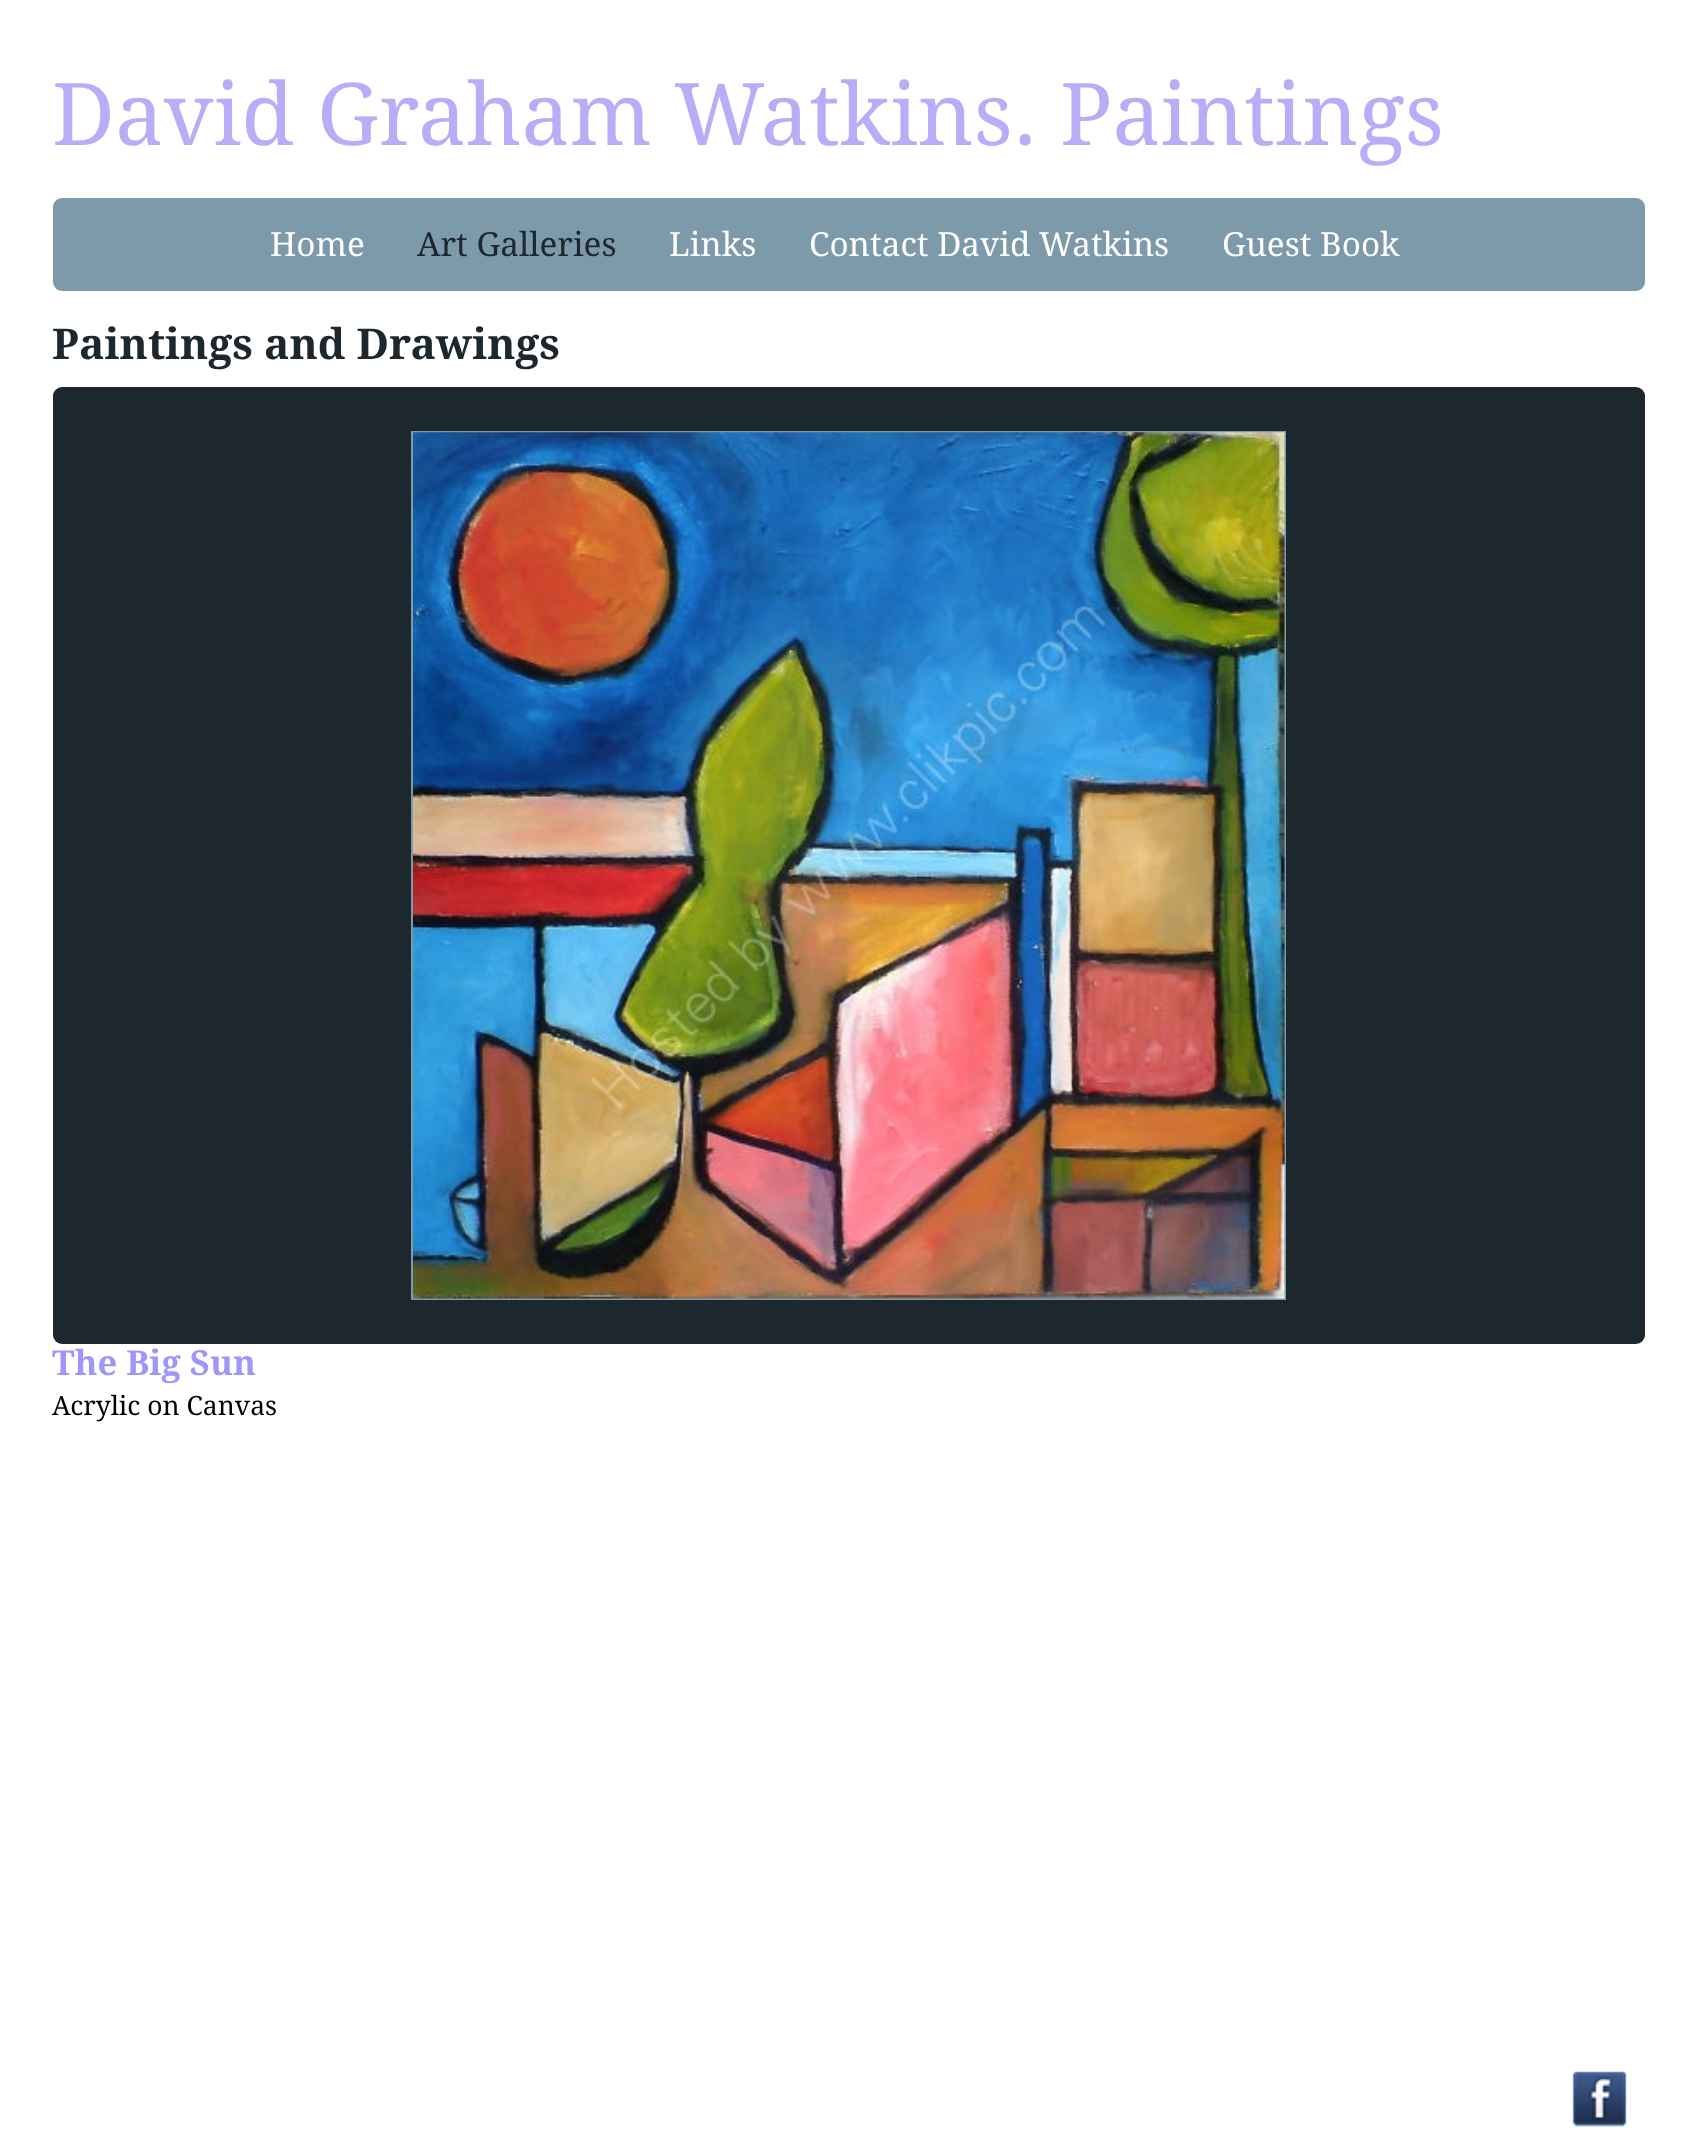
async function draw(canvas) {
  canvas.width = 1695
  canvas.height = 2141
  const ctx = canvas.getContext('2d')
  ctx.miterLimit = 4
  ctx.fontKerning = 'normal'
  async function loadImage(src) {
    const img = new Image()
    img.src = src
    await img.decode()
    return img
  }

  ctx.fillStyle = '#fff'
  ctx.fillRect(0, 0, 1695, 2141)
  ctx.font = '86.5px Droid Serif'
  ctx.fillStyle = '#bbacf7'
  ctx.fillText('David Graham Watkins. Paintings', 52, 145)
  ctx.fillStyle = '#7d9aaa'
  ctx.beginPath()
  ctx.roundRect(53, 198, 1592, 93, 9)
  ctx.fill()
  ctx.font = '33.25px Droid Serif'
  ctx.fillStyle = '#fff'
  ctx.fillText('Home', 270, 256)
  ctx.fillStyle = '#1d282e'
  ctx.fillText('Art Galleries', 417, 256)
  ctx.fillStyle = '#fff'
  ctx.fillText('Links', 669, 256)
  ctx.fillText('Contact David Watkins', 809, 256)
  ctx.fillText('Guest Book', 1222, 256)
  ctx.font = 'bold 42.5px Droid Serif'
  ctx.fillStyle = '#1d282e'
  ctx.fillText('Paintings and Drawings', 52, 359)
  ctx.beginPath()
  ctx.roundRect(53, 387, 1592, 957, 9)
  ctx.fill()
  ctx.strokeStyle = '#7d9aaa'
  ctx.lineWidth = 2
  ctx.strokeRect(412, 432, 873, 867)
  ctx.drawImage(await loadImage('image0.png'), 413, 432, 872, 867)
  ctx.font = 'bold 34.5px Droid Serif'
  ctx.fillStyle = '#a096fa'
  ctx.fillText('The Big Sun', 52, 1375)
  ctx.font = '26.5px Droid Serif'
  ctx.fillStyle = '#000'
  ctx.fillText('Acrylic on Canvas', 52, 1415)
  ctx.drawImage(await loadImage('image1.png'), 1572, 2071, 55, 56)
}

draw(document.querySelector('canvas'))
